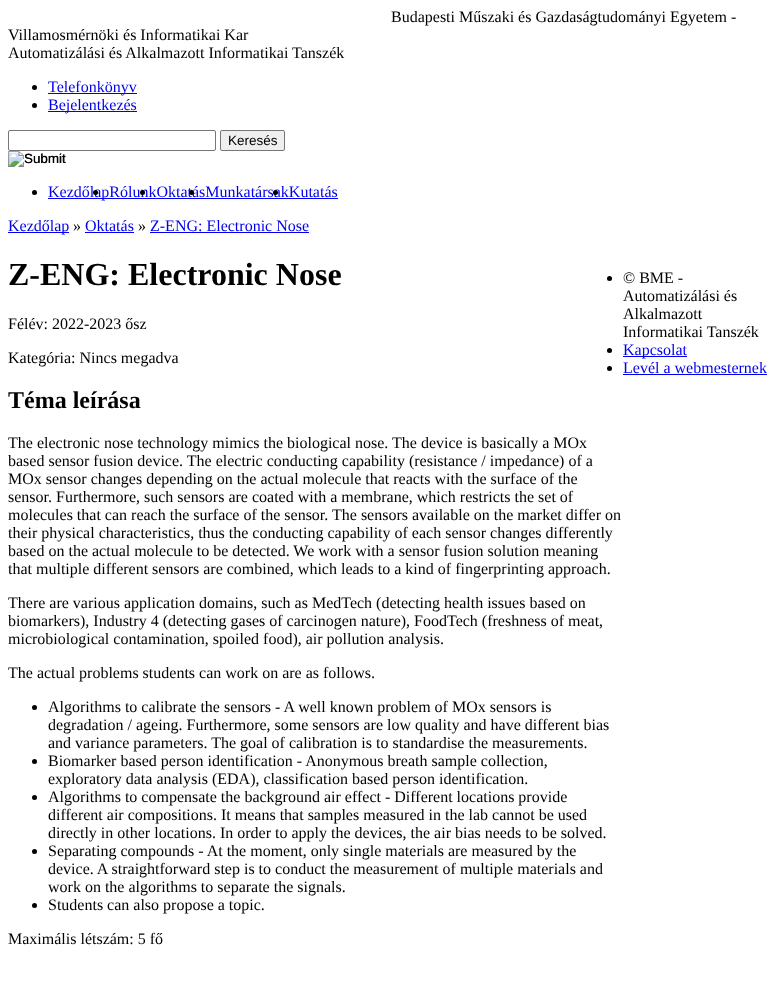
async function draw(canvas) {
  canvas.width = 781
  canvas.height = 995
  const ctx = canvas.getContext('2d')
  ctx.miterLimit = 4
  ctx.fontKerning = 'normal'
  async function loadImage(src) {
    const img = new Image()
    img.src = src
    await img.decode()
    return img
  }

  ctx.fillStyle = '#fff'
  ctx.fillRect(0, 0, 781, 995)
  ctx.font = '16px Liberation Serif'
  ctx.fillStyle = '#000'
  ctx.fillText('Budapesti Műszaki és Gazdaságtudományi Egyetem -', 391, 22)
  ctx.fillText('Villamosmérnöki és Informatikai Kar', 8, 40)
  ctx.fillText('Automatizálási és Alkalmazott Informatikai Tanszék', 8, 58)
  ctx.beginPath()
  ctx.arc(34.5, 87.5, 2.5, 0, 2 * Math.PI)
  ctx.fill()
  ctx.fillStyle = '#00e'
  ctx.fillRect(48, 93, 89, 1)
  ctx.fillText('Telefonkönyv', 48, 92)
  ctx.fillStyle = '#000'
  ctx.beginPath()
  ctx.arc(34.5, 105.5, 2.5, 0, 2 * Math.PI)
  ctx.fill()
  ctx.fillStyle = '#00e'
  ctx.fillRect(48, 111, 89, 1)
  ctx.fillText('Bejelentkezés', 48, 110)
  ctx.beginPath()
  ctx.roundRect(8.5, 130.5, 207, 20, 1.5)
  ctx.strokeStyle = '#767676'
  ctx.stroke()
  ctx.fillStyle = '#efefef'
  ctx.beginPath()
  ctx.roundRect(220.5, 130.5, 64, 20, 1.5)
  ctx.fill()
  ctx.stroke()
  ctx.font = '13.5px Liberation Sans'
  ctx.fillStyle = '#000'
  ctx.fillText('Keresés', 228, 145)
  ctx.drawImage(await loadImage('image0.png'), 8, 151, 57, 16)
  ctx.fillText('Submit', 24, 163)
  ctx.beginPath()
  ctx.arc(34.5, 192.5, 2.5, 0, 2 * Math.PI)
  ctx.fill()
  ctx.fillStyle = '#00e'
  ctx.fillRect(48, 198, 108, 1)
  ctx.font = '16px Liberation Serif'
  ctx.fillText('KezdőlapRólunkOktatásMunkatársakKutatás', 48, 197)
  ctx.fillStyle = '#000'
  ctx.beginPath()
  ctx.arc(95.5, 192.5, 2.5, 0, 2 * Math.PI)
  ctx.fill()
  ctx.beginPath()
  ctx.arc(142.5, 192.5, 2.5, 0, 2 * Math.PI)
  ctx.fill()
  ctx.fillStyle = '#00e'
  ctx.fillRect(156, 198, 182, 1)
  ctx.fillStyle = '#000'
  ctx.beginPath()
  ctx.arc(191.5, 192.5, 2.5, 0, 2 * Math.PI)
  ctx.fill()
  ctx.beginPath()
  ctx.arc(275.5, 192.5, 2.5, 0, 2 * Math.PI)
  ctx.fill()
  ctx.fillStyle = '#00e'
  ctx.fillRect(8, 232, 61, 1)
  ctx.fillText('Kezdőlap', 8, 231)
  ctx.fillStyle = '#000'
  ctx.fillText('»', 73, 231)
  ctx.fillStyle = '#00e'
  ctx.fillText('Oktatás', 85, 231)
  ctx.fillRect(85, 232, 49, 1)
  ctx.fillStyle = '#000'
  ctx.fillText('»', 138, 231)
  ctx.fillStyle = '#00e'
  ctx.fillText('Z-ENG: Electronic Nose', 150, 231)
  ctx.fillRect(150, 232, 159, 1)
  ctx.font = 'bold 32px Liberation Serif'
  ctx.fillStyle = '#000'
  ctx.fillText('Z-ENG: Electronic Nose', 8, 285)
  ctx.font = '16px Liberation Serif'
  ctx.fillText('Félév: 2022-2023 ősz', 8, 329)
  ctx.fillText('Kategória: Nincs megadva', 8, 363)
  ctx.font = 'bold 24px Liberation Serif'
  ctx.fillText('Téma leírása', 8, 408)
  ctx.font = '16px Liberation Serif'
  ctx.fillText('The electronic nose technology mimics the biological nose. The device is basically a MOx', 8, 448)
  ctx.fillText('based sensor fusion device. The electric conducting capability (resistance / impedance) of a', 8, 466)
  ctx.fillText('MOx sensor changes depending on the actual molecule that reacts with the surface of the', 8, 484)
  ctx.fillText('sensor. Furthermore, such sensors are coated with a membrane, which restricts the set of', 8, 502)
  ctx.fillText('molecules that can reach the surface of the sensor. The sensors available on the market differ on', 8, 520)
  ctx.fillText('their physical characteristics, thus the conducting capability of each sensor changes differently', 8, 538)
  ctx.fillText('based on the actual molecule to be detected. We work with a sensor fusion solution meaning', 8, 556)
  ctx.fillText('that multiple different sensors are combined, which leads to a kind of fingerprinting approach.', 8, 574)
  ctx.fillText('There are various application domains, such as MedTech (detecting health issues based on', 8, 608)
  ctx.fillText('biomarkers), Industry 4 (detecting gases of carcinogen nature), FoodTech (freshness of meat,', 8, 626)
  ctx.fillText('microbiological contamination, spoiled food), air pollution analysis.', 8, 644)
  ctx.fillText('The actual problems students can work on are as follows.', 8, 678)
  ctx.beginPath()
  ctx.arc(34.5, 707.5, 2.5, 0, 2 * Math.PI)
  ctx.fill()
  ctx.fillText('Algorithms to calibrate the sensors - A well known problem of MOx sensors is', 48, 712)
  ctx.fillText('degradation / ageing. Furthermore, some sensors are low quality and have different bias', 48, 730)
  ctx.fillText('and variance parameters. The goal of calibration is to standardise the measurements.', 48, 748)
  ctx.beginPath()
  ctx.arc(34.5, 761.5, 2.5, 0, 2 * Math.PI)
  ctx.fill()
  ctx.fillText('Biomarker based person identification - Anonymous breath sample collection,', 48, 766)
  ctx.fillText('exploratory data analysis (EDA), classification based person identification.', 48, 784)
  ctx.beginPath()
  ctx.arc(34.5, 797.5, 2.5, 0, 2 * Math.PI)
  ctx.fill()
  ctx.fillText('Algorithms to compensate the background air effect - Different locations provide', 48, 802)
  ctx.fillText('different air compositions. It means that samples measured in the lab cannot be used', 48, 820)
  ctx.fillText('directly in other locations. In order to apply the devices, the air bias needs to be solved.', 48, 838)
  ctx.beginPath()
  ctx.arc(34.5, 851.5, 2.5, 0, 2 * Math.PI)
  ctx.fill()
  ctx.fillText('Separating compounds - At the moment, only single materials are measured by the', 48, 856)
  ctx.fillText('device. A straightforward step is to conduct the measurement of multiple materials and', 48, 874)
  ctx.fillText('work on the algorithms to separate the signals.', 48, 892)
  ctx.beginPath()
  ctx.arc(34.5, 905.5, 2.5, 0, 2 * Math.PI)
  ctx.fill()
  ctx.fillText('Students can also propose a topic.', 48, 910)
  ctx.fillText('Maximális létszám: 5 fő', 8, 944)
  ctx.beginPath()
  ctx.arc(609.5, 278.5, 2.5, 0, 2 * Math.PI)
  ctx.fill()
  ctx.fillText('© BME -', 623, 283)
  ctx.fillText('Automatizálási és', 623, 301)
  ctx.fillText('Alkalmazott', 623, 319)
  ctx.fillText('Informatikai Tanszék', 623, 337)
  ctx.beginPath()
  ctx.arc(609.5, 350.5, 2.5, 0, 2 * Math.PI)
  ctx.fill()
  ctx.fillStyle = '#00e'
  ctx.fillRect(623, 356, 64, 1)
  ctx.fillText('Kapcsolat', 623, 355)
  ctx.fillStyle = '#000'
  ctx.beginPath()
  ctx.arc(609.5, 368.5, 2.5, 0, 2 * Math.PI)
  ctx.fill()
  ctx.fillStyle = '#00e'
  ctx.fillText('Levél a webmesternek', 623, 373)
  ctx.fillRect(623, 374, 144, 1)
}

draw(document.querySelector('canvas'))
